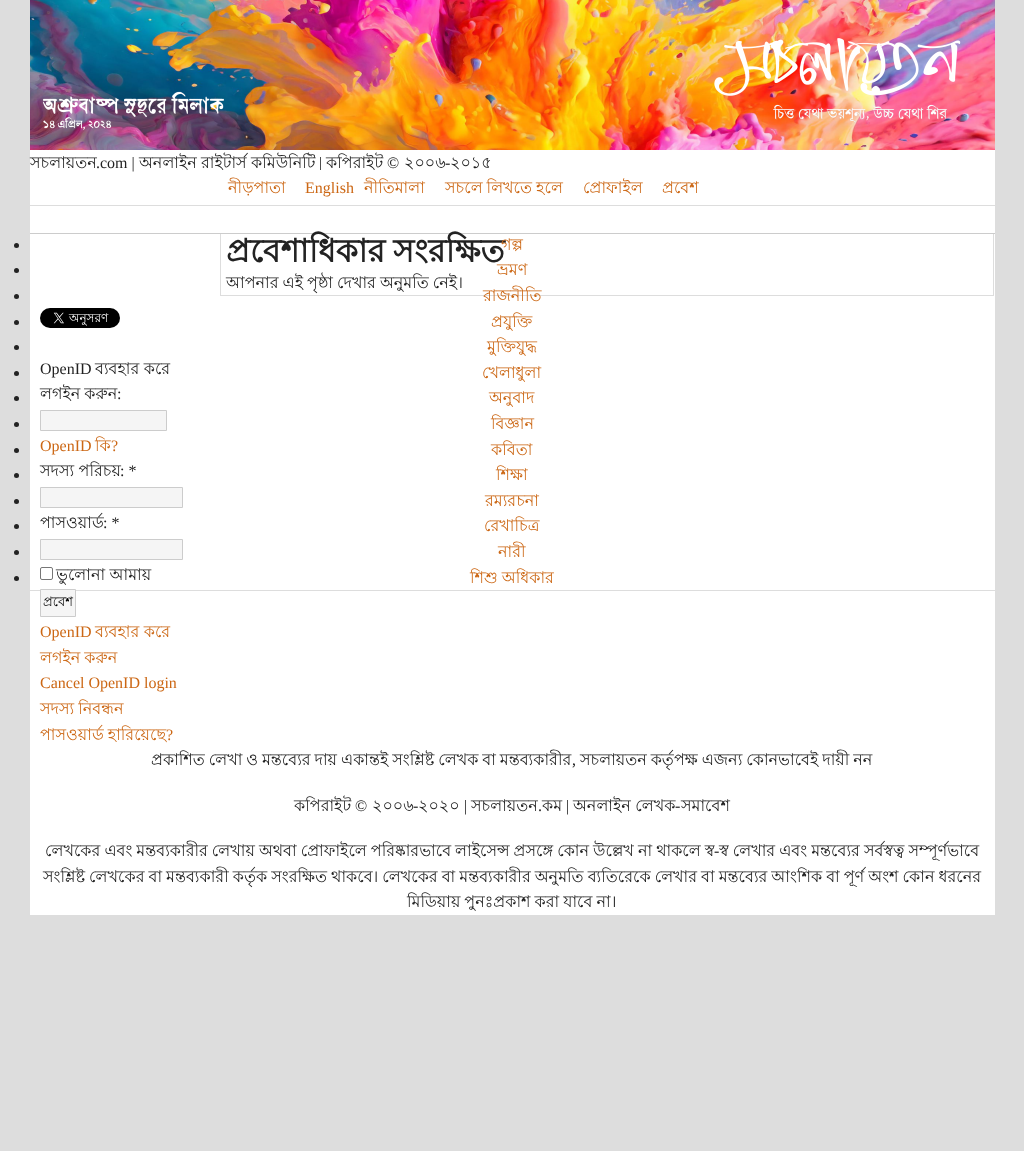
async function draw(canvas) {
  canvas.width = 1024
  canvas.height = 1151
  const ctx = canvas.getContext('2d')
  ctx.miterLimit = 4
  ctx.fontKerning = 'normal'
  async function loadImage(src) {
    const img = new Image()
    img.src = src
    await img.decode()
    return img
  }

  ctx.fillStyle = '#ddd'
  ctx.fillRect(0, 0, 1024, 1151)
  ctx.fillStyle = '#fff'
  ctx.fillRect(30, 150, 965, 765)
  ctx.fillStyle = '#ccc'
  ctx.fillRect(30, 233, 965, 1)
  ctx.drawImage(await loadImage('image0.png'), 30, 0, 965, 150)
  ctx.font = '16px Lohit Bengali'
  ctx.fillStyle = '#222'
  ctx.fillText('সচলায়তন', 30, 168)
  ctx.font = '16px Liberation Serif'
  ctx.fillText('.com |', 96, 168)
  ctx.font = '16px Lohit Bengali'
  ctx.fillText('অনলাইন', 139, 168)
  ctx.fillText('রাইটার্স', 201, 168)
  ctx.fillText('কমিউনিটি', 251, 168)
  ctx.font = '16px Liberation Serif'
  ctx.fillText('|', 319, 168)
  ctx.font = '16px Lohit Bengali'
  ctx.fillText('কপিরাইট', 326, 168)
  ctx.font = '16px Liberation Serif'
  ctx.fillText('©', 387, 168)
  ctx.font = '16px Lohit Bengali'
  ctx.fillText('২০০৬', 404, 168)
  ctx.font = '16px Liberation Serif'
  ctx.fillText('-', 445, 168)
  ctx.font = '16px Lohit Bengali'
  ctx.fillText('২০১৫', 450, 168)
  ctx.fillStyle = '#cc6714'
  ctx.fillText('নীড়পাতা', 228, 193)
  ctx.fillStyle = '#fff'
  ctx.fillRect(320, 170, 2, 2)
  ctx.font = '16px Liberation Serif'
  ctx.fillStyle = '#cc6714'
  ctx.fillText('English', 305, 193)
  ctx.font = '16px Lohit Bengali'
  ctx.fillText('নীতিমালা', 364, 193)
  ctx.wordSpacing = '-0.4px'
  ctx.fillText('সচলে লিখতে হলে', 445, 193)
  ctx.wordSpacing = '0px'
  ctx.fillText('প্রোফাইল', 583, 193)
  ctx.fillText('প্রবেশ', 662, 193)
  ctx.fillStyle = '#ddd'
  ctx.fillRect(30, 205, 965, 1)
  ctx.fillRect(30, 590, 965, 1)
  ctx.fillStyle = '#222'
  ctx.beginPath()
  ctx.arc(16.5, 245.5, 2.5, 0, 2 * Math.PI)
  ctx.fill()
  ctx.wordSpacing = '-1px'
  ctx.font = 'bold 32px Lohit Bengali'
  ctx.fillText('প্রবেশাধিকার সংরক্ষিত', 226, 262)
  ctx.wordSpacing = '0px'
  ctx.font = '16px Lohit Bengali'
  ctx.fillStyle = '#cc6714'
  ctx.fillText('গল্প', 501, 250)
  ctx.fillStyle = '#222'
  ctx.beginPath()
  ctx.arc(16.5, 270.5, 2.5, 0, 2 * Math.PI)
  ctx.fill()
  ctx.fillStyle = '#cc6714'
  ctx.fillText('ভ্রমণ', 497, 275)
  ctx.fillStyle = '#222'
  ctx.beginPath()
  ctx.arc(16.5, 296.5, 2.5, 0, 2 * Math.PI)
  ctx.fill()
  ctx.fillStyle = '#ddd'
  ctx.fillRect(993, 234, 1, 62)
  ctx.fillRect(220, 295, 774, 1)
  ctx.fillStyle = '#cc6714'
  ctx.fillText('রাজনীতি', 483, 301)
  ctx.fillStyle = '#222'
  ctx.beginPath()
  ctx.arc(16.5, 322.5, 2.5, 0, 2 * Math.PI)
  ctx.fill()
  ctx.fillStyle = '#cc6714'
  ctx.fillText('প্রযুক্তি', 491, 327)
  ctx.fillStyle = '#222'
  ctx.beginPath()
  ctx.arc(16.5, 347.5, 2.5, 0, 2 * Math.PI)
  ctx.fill()
  ctx.fillStyle = '#cc6714'
  ctx.fillText('মুক্তিযুদ্ধ', 487, 352)
  ctx.fillStyle = '#222'
  ctx.beginPath()
  ctx.arc(16.5, 373.5, 2.5, 0, 2 * Math.PI)
  ctx.fill()
  ctx.fillStyle = '#cc6714'
  ctx.fillText('খেলাধুলা', 482, 378)
  ctx.fillStyle = '#222'
  ctx.beginPath()
  ctx.arc(16.5, 398.5, 2.5, 0, 2 * Math.PI)
  ctx.fill()
  ctx.fillStyle = '#cc6714'
  ctx.fillText('অনুবাদ', 489, 403)
  ctx.fillStyle = '#222'
  ctx.beginPath()
  ctx.arc(16.5, 424.5, 2.5, 0, 2 * Math.PI)
  ctx.fill()
  ctx.fillStyle = '#cc6714'
  ctx.fillText('বিজ্ঞান', 491, 429)
  ctx.fillStyle = '#222'
  ctx.beginPath()
  ctx.arc(16.5, 450.5, 2.5, 0, 2 * Math.PI)
  ctx.fill()
  ctx.fillStyle = '#cc6714'
  ctx.fillText('কবিতা', 491, 455)
  ctx.fillStyle = '#222'
  ctx.beginPath()
  ctx.arc(16.5, 475.5, 2.5, 0, 2 * Math.PI)
  ctx.fill()
  ctx.fillStyle = '#cc6714'
  ctx.fillText('শিক্ষা', 496, 480)
  ctx.fillStyle = '#222'
  ctx.beginPath()
  ctx.arc(16.5, 501.5, 2.5, 0, 2 * Math.PI)
  ctx.fill()
  ctx.fillStyle = '#cc6714'
  ctx.fillText('রম্যরচনা', 485, 506)
  ctx.fillStyle = '#222'
  ctx.beginPath()
  ctx.arc(16.5, 526.5, 2.5, 0, 2 * Math.PI)
  ctx.fill()
  ctx.fillStyle = '#cc6714'
  ctx.fillText('রেখাচিত্র', 484, 531)
  ctx.fillStyle = '#222'
  ctx.beginPath()
  ctx.arc(16.5, 552.5, 2.5, 0, 2 * Math.PI)
  ctx.fill()
  ctx.fillStyle = '#cc6714'
  ctx.fillText('নারী', 498, 557)
  ctx.fillStyle = '#222'
  ctx.beginPath()
  ctx.arc(16.5, 578.5, 2.5, 0, 2 * Math.PI)
  ctx.fill()
  ctx.wordSpacing = '-0.4px'
  ctx.fillStyle = '#cc6714'
  ctx.fillText('শিশু অধিকার', 470, 583)
  ctx.fillStyle = '#ddd'
  ctx.fillRect(220, 234, 1, 62)
  ctx.fillStyle = '#222'
  ctx.fillText('আপনার এই পৃষ্ঠা দেখার অনুমতি নেই।', 226, 288)
  ctx.drawImage(await loadImage('image1.png'), 40, 308, 80, 20)
  ctx.wordSpacing = '0px'
  ctx.font = '16px Liberation Serif'
  ctx.fillText('OpenID', 40, 374)
  ctx.font = '16px Lohit Bengali'
  ctx.fillText('ব্যবহার করে', 95, 374)
  ctx.wordSpacing = '-0.4px'
  ctx.fillText('লগইন করুন', 40, 399)
  ctx.wordSpacing = '0px'
  ctx.font = '16px Liberation Serif'
  ctx.fillText(':', 117, 399)
  ctx.fillStyle = '#f5f5f5'
  ctx.beginPath()
  ctx.rect(40.5, 410.5, 126, 20)
  ctx.fill()
  ctx.strokeStyle = '#ccc'
  ctx.stroke()
  ctx.fillStyle = '#cc6714'
  ctx.fillText('OpenID', 40, 451)
  ctx.font = '16px Lohit Bengali'
  ctx.fillText('কি', 95, 451)
  ctx.font = '16px Liberation Serif'
  ctx.fillText('?', 111, 451)
  ctx.font = '16px Lohit Bengali'
  ctx.fillStyle = '#222'
  ctx.fillText('সদস্য পরিচয়', 40, 476)
  ctx.font = '16px Liberation Serif'
  ctx.fillText(': *', 120, 476)
  ctx.fillStyle = '#f5f5f5'
  ctx.beginPath()
  ctx.rect(40.5, 487.5, 142, 20)
  ctx.fill()
  ctx.stroke()
  ctx.font = '16px Lohit Bengali'
  ctx.fillStyle = '#222'
  ctx.fillText('পাসওয়ার্ড', 40, 528)
  ctx.font = '16px Liberation Serif'
  ctx.fillText(': *', 103, 528)
  ctx.fillStyle = '#f5f5f5'
  ctx.beginPath()
  ctx.rect(40.5, 539.5, 142, 20)
  ctx.fill()
  ctx.stroke()
  ctx.beginPath()
  ctx.roundRect(40.5, 567.5, 12, 12, 1.5)
  ctx.strokeStyle = '#767676'
  ctx.stroke()
  ctx.font = '16px Lohit Bengali'
  ctx.fillStyle = '#222'
  ctx.fillText('ভুলোনা আমায়', 56, 580)
  ctx.fillStyle = '#f5f5f5'
  ctx.beginPath()
  ctx.rect(40.5, 589.5, 35, 27)
  ctx.fill()
  ctx.strokeStyle = '#ccc'
  ctx.stroke()
  ctx.font = '13px Lohit Bengali'
  ctx.fillStyle = '#000'
  ctx.fillText('প্রবেশ', 43, 606)
  ctx.font = '16px Liberation Serif'
  ctx.fillStyle = '#cc6714'
  ctx.fillText('OpenID', 40, 637)
  ctx.font = '16px Lohit Bengali'
  ctx.fillText('ব্যবহার করে', 95, 637)
  ctx.wordSpacing = '-0.4px'
  ctx.fillText('লগইন করুন', 40, 663)
  ctx.wordSpacing = '0px'
  ctx.font = '16px Liberation Serif'
  ctx.fillText('Cancel OpenID login', 40, 688)
  ctx.wordSpacing = '-0.4px'
  ctx.font = '16px Lohit Bengali'
  ctx.fillText('সদস্য নিবন্ধন', 40, 714)
  ctx.fillText('পাসওয়ার্ড হারিয়েছে', 40, 740)
  ctx.wordSpacing = '0px'
  ctx.font = '16px Liberation Serif'
  ctx.fillText('?', 166, 740)
  ctx.wordSpacing = '-0.5px'
  ctx.font = '16px Lohit Bengali'
  ctx.fillStyle = '#222'
  ctx.fillText('প্রকাশিত লেখা ও মন্তব্যের দায় একান্তই সংশ্লিষ্ট লেখক বা মন্তব্যকারীর', 151, 765)
  ctx.wordSpacing = '0px'
  ctx.font = '16px Liberation Serif'
  ctx.fillText(',', 572, 765)
  ctx.wordSpacing = '-0.5px'
  ctx.font = '16px Lohit Bengali'
  ctx.fillText('সচলায়তন কর্তৃপক্ষ এজন্য কোনভাবেই দায়ী নন', 580, 765)
  ctx.wordSpacing = '0px'
  ctx.fillText('কপিরাইট', 294, 811)
  ctx.font = '16px Liberation Serif'
  ctx.fillText('©', 355, 811)
  ctx.font = '16px Lohit Bengali'
  ctx.fillText('২০০৬', 372, 811)
  ctx.font = '16px Liberation Serif'
  ctx.fillText('-', 413, 811)
  ctx.font = '16px Lohit Bengali'
  ctx.fillText('২০২০', 418, 811)
  ctx.font = '16px Liberation Serif'
  ctx.fillText('|', 464, 811)
  ctx.font = '16px Lohit Bengali'
  ctx.fillText('সচলায়তন', 471, 811)
  ctx.fillText('কম', 542, 811)
  ctx.font = '16px Liberation Serif'
  ctx.fillText('|', 566, 811)
  ctx.font = '16px Lohit Bengali'
  ctx.fillText('অনলাইন লেখক', 573, 811)
  ctx.font = '16px Liberation Serif'
  ctx.fillText('-', 675, 811)
  ctx.font = '16px Lohit Bengali'
  ctx.fillText('সমাবেশ', 681, 811)
  ctx.font = '16px Liberation Serif'
  ctx.fillText('.', 538, 811)
  ctx.wordSpacing = '-0.4px'
  ctx.font = '16px Lohit Bengali'
  ctx.fillText('লেখকের এবং মন্তব্যকারীর লেখায় অথবা প্রোফাইলে পরিষ্কারভাবে লাইসেন্স প্রসঙ্গে কোন উল্লেখ না থাকলে স্ব', 45, 856)
  ctx.wordSpacing = '0px'
  ctx.font = '16px Liberation Serif'
  ctx.fillText('-', 714, 856)
  ctx.wordSpacing = '-0.4px'
  ctx.font = '16px Lohit Bengali'
  ctx.fillText('স্ব লেখার এবং মন্তব্যের সর্বস্বত্ব সম্পূর্ণভাবে', 719, 856)
  ctx.fillText('সংশ্লিষ্ট লেখকের বা মন্তব্যকারী কর্তৃক সংরক্ষিত থাকবে। লেখকের বা মন্তব্যকারীর অনুমতি ব্যতিরেকে লেখার বা মন্তব্যের আংশিক বা পূর্ণ অংশ কোন ধরনের', 43, 882)
  ctx.fillText('মিডিয়ায় পুনঃপ্রকাশ করা যাবে না।', 407, 907)
}

draw(document.querySelector('canvas'))
